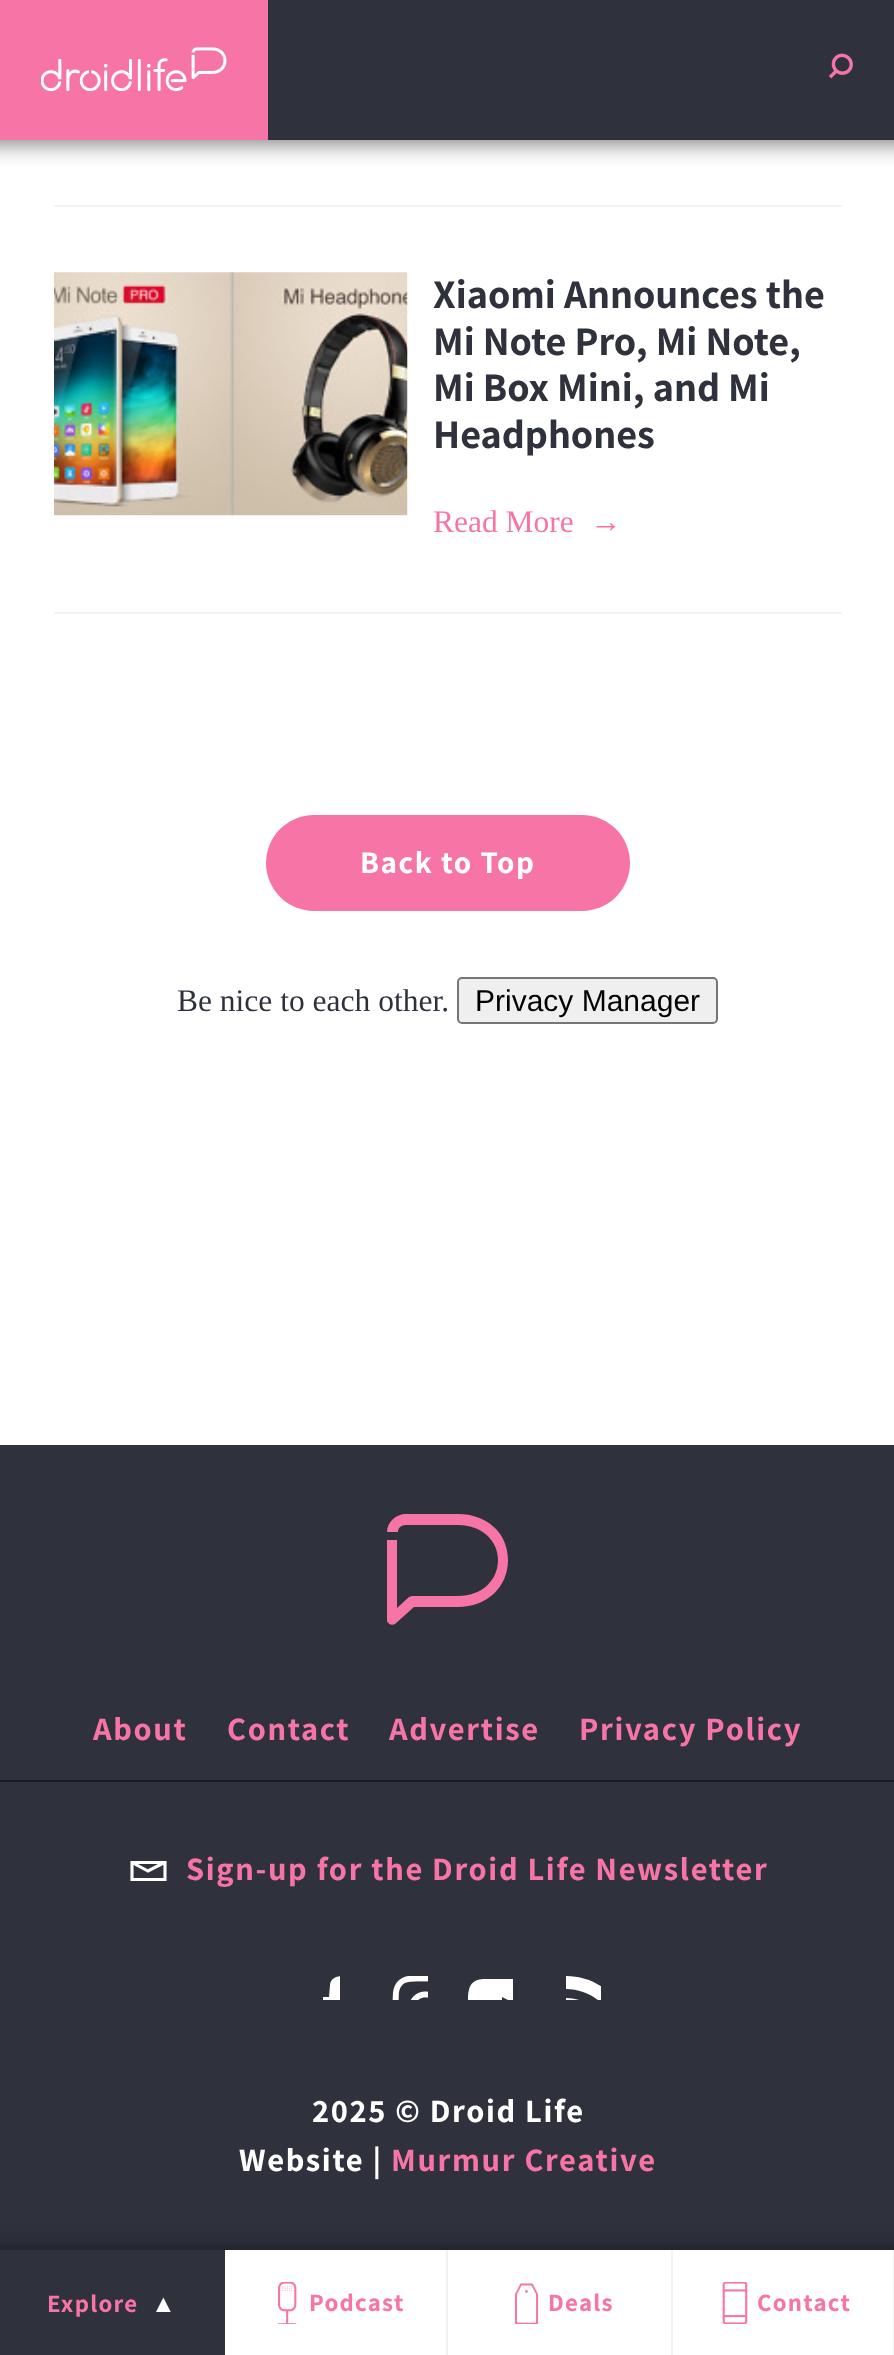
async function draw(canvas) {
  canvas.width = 894
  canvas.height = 2355
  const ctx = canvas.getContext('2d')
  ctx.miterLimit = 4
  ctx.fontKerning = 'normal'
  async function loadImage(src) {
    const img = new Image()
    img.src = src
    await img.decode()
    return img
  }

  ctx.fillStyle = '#fff'
  ctx.fillRect(0, 0, 894, 2355)
  ctx.fillStyle = '#f2f2f3'
  ctx.fillRect(54, 205, 788, 2)
  ctx.fillRect(54, 612, 788, 2)
  ctx.drawImage(await loadImage('image0.png'), 54, 272, 354, 244)
  ctx.font = '200 40.5px Assistant'
  ctx.fillStyle = '#2f313c'
  ctx.fillText('Xiaomi Announces the', 433, 308)
  ctx.fillText('Mi Note Pro, Mi Note,', 433, 355)
  ctx.fillText('Mi Box Mini, and Mi', 433, 401)
  ctx.fillText('Headphones', 433, 448)
  ctx.font = '31.5px Liberation Serif'
  ctx.fillStyle = '#f674a6'
  ctx.fillText('Read More', 433, 532)
  ctx.fillText('→', 590, 532)
  ctx.beginPath()
  ctx.roundRect(266, 815, 364, 96, 48)
  ctx.fill()
  ctx.letterSpacing = '1.5px'
  ctx.font = '200 31.5px Assistant'
  ctx.fillStyle = '#fff'
  ctx.fillText('Back to Top', 360, 873)
  ctx.letterSpacing = '0px'
  ctx.font = '31.5px Liberation Serif'
  ctx.fillStyle = '#2f313c'
  ctx.fillText('Be nice to each other.', 177, 1011)
  ctx.fillStyle = '#efefef'
  ctx.beginPath()
  ctx.roundRect(458, 978, 259, 45, 4)
  ctx.fill()
  ctx.strokeStyle = '#767676'
  ctx.lineWidth = 2
  ctx.stroke()
  ctx.font = '30px Liberation Sans'
  ctx.fillStyle = '#000'
  ctx.fillText('Privacy Manager', 475, 1011)
  ctx.fillStyle = '#2f313c'
  ctx.fillRect(0, 1445, 894, 805)
  ctx.fillStyle = '#f674a6'
  ctx.beginPath()
  ctx.moveTo(458, 1514)
  ctx.lineTo(406, 1514)
  ctx.bezierCurveTo(396, 1514, 387, 1522, 387, 1532)
  ctx.lineTo(398, 1532)
  ctx.bezierCurveTo(398, 1528, 401, 1525, 406, 1525)
  ctx.lineTo(458, 1525)
  ctx.bezierCurveTo(481, 1525, 498, 1540, 498, 1560)
  ctx.bezierCurveTo(498, 1581, 481, 1596, 458, 1596)
  ctx.lineTo(412, 1596)
  ctx.bezierCurveTo(411, 1596, 410, 1597, 409, 1597)
  ctx.lineTo(397, 1608)
  ctx.lineTo(397, 1540)
  ctx.lineTo(387, 1540)
  ctx.lineTo(387, 1621)
  ctx.bezierCurveTo(388, 1624, 392, 1626, 395, 1624)
  ctx.lineTo(414, 1607)
  ctx.lineTo(458, 1607)
  ctx.bezierCurveTo(487, 1607, 508, 1587, 508, 1560)
  ctx.bezierCurveTo(508, 1533, 487, 1514, 458, 1514)
  ctx.fill()
  ctx.fillStyle = '#191a1f'
  ctx.fillRect(0, 1780, 894, 2)
  ctx.letterSpacing = '1.65px'
  ctx.font = '200 32.75px Assistant'
  ctx.fillStyle = '#f674a6'
  ctx.fillText('About', 93, 1740)
  ctx.fillText('Contact', 227, 1740)
  ctx.fillText('Advertise', 389, 1740)
  ctx.fillText('Privacy Policy', 579, 1740)
  ctx.fillText('Sign-up for the Droid Life Newsletter', 186, 1880)
  ctx.beginPath()
  ctx.moveTo(132, 1862.5)
  ctx.lineTo(165, 1862.5)
  ctx.lineTo(165, 1879.5)
  ctx.lineTo(132, 1879.5)
  ctx.closePath()
  ctx.moveTo(132, 1862.5)
  ctx.lineTo(148, 1871)
  ctx.lineTo(164.5, 1862.5)
  ctx.strokeStyle = '#fff'
  ctx.lineWidth = 3.1
  ctx.stroke()
  ctx.save()
  ctx.beginPath()
  ctx.rect(295, 1976, 45, 24)
  ctx.clip()
  ctx.fillStyle = '#fff'
  ctx.beginPath()
  ctx.moveTo(329, 1997)
  ctx.lineTo(323, 1997)
  ctx.lineTo(323, 2008)
  ctx.lineTo(329, 2008)
  ctx.lineTo(329, 2041)
  ctx.lineTo(343, 2041)
  ctx.lineTo(343, 2008)
  ctx.lineTo(352, 2008)
  ctx.lineTo(353, 1997)
  ctx.lineTo(343, 1997)
  ctx.bezierCurveTo(343, 1986, 342, 1987, 353, 1987)
  ctx.lineTo(353, 1976)
  ctx.bezierCurveTo(344, 1976, 331, 1974, 330, 1985)
  ctx.closePath()
  ctx.fill()
  ctx.restore()
  ctx.drawImage(await loadImage('image1.png'), 392, 1976, 36, 24)
  ctx.save()
  ctx.beginPath()
  ctx.rect(468, 1976, 45, 24)
  ctx.clip()
  ctx.fillStyle = '#fff'
  ctx.beginPath()
  ctx.moveTo(551, 1993)
  ctx.bezierCurveTo(549, 1977, 538, 1979, 525, 1979)
  ctx.lineTo(502, 1979)
  ctx.lineTo(483, 1979)
  ctx.bezierCurveTo(472, 1980, 469, 1985, 468, 1996)
  ctx.bezierCurveTo(468, 2005, 468, 2015, 469, 2024)
  ctx.bezierCurveTo(471, 2040, 482, 2037, 495, 2038)
  ctx.lineTo(517, 2038)
  ctx.lineTo(537, 2037)
  ctx.bezierCurveTo(548, 2036, 551, 2032, 551, 2020)
  ctx.bezierCurveTo(552, 2011, 552, 2002, 551, 1993)
  ctx.closePath()
  ctx.moveTo(502, 2020)
  ctx.lineTo(502, 1997)
  ctx.lineTo(524, 2008)
  ctx.closePath()
  ctx.fill()
  ctx.restore()
  ctx.save()
  ctx.beginPath()
  ctx.rect(556, 1976, 45, 24)
  ctx.clip()
  ctx.fillStyle = '#fff'
  ctx.beginPath()
  ctx.moveTo(584, 2032)
  ctx.bezierCurveTo(584, 2044, 566, 2044, 566, 2032)
  ctx.bezierCurveTo(566, 2021, 584, 2021, 584, 2032)
  ctx.closePath()
  ctx.moveTo(566, 1998)
  ctx.lineTo(566, 2011)
  ctx.bezierCurveTo(582, 2011, 596, 2025, 596, 2041)
  ctx.lineTo(609, 2041)
  ctx.bezierCurveTo(609, 2017, 590, 1998, 566, 1998)
  ctx.closePath()
  ctx.moveTo(566, 1989)
  ctx.bezierCurveTo(594, 1989, 618, 2012, 618, 2041)
  ctx.lineTo(631, 2041)
  ctx.bezierCurveTo(631, 2005, 602, 1976, 566, 1976)
  ctx.closePath()
  ctx.fill()
  ctx.restore()
  ctx.fillStyle = '#fff'
  ctx.fillText('2025 © Droid Life', 312, 2122)
  ctx.fillText('Website |', 239, 2171)
  ctx.fillStyle = '#f674a6'
  ctx.fillText('Murmur Creative', 391, 2171)
  ctx.fillStyle = '#00000080'
  ctx.filter = 'blur(11px)'
  ctx.beginPath()
  ctx.rect(-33, -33, 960, 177)
  ctx.fill()
  ctx.filter = 'none'
  ctx.fillStyle = '#f674a6'
  ctx.fillRect(0, 0, 268, 140)
  ctx.drawImage(await loadImage('image2.png'), 41, 47, 186, 45)
  ctx.fillStyle = '#2f313c'
  ctx.fillRect(268, 0, 626, 140)
  ctx.drawImage(await loadImage('image3.png'), 829, 53, 24, 26)
  ctx.fillStyle = '#00000080'
  ctx.filter = 'blur(11px)'
  ctx.beginPath()
  ctx.rect(-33, 2250, 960, 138)
  ctx.fill()
  ctx.filter = 'none'
  ctx.fillStyle = '#fff'
  ctx.fillRect(225, 2250, 668, 105)
  ctx.fillStyle = '#2f313c'
  ctx.fillRect(0, 2250, 225, 105)
  ctx.letterSpacing = '1.25px'
  ctx.font = '200 25px Assistant'
  ctx.fillStyle = '#f674a6'
  ctx.fillText('Explore', 47, 2312)
  ctx.font = '25px Liberation Sans'
  ctx.fillStyle = '#fff'
  ctx.fillText('▲', 151, 2312)
  ctx.fillStyle = '#f2f2f3'
  ctx.fillRect(446, 2250, 2, 105)
  ctx.drawImage(await loadImage('image4.png'), 278, 2282, 19, 42)
  ctx.font = '200 25px Assistant'
  ctx.fillStyle = '#f674a6'
  ctx.fillText('Podcast', 309, 2311)
  ctx.fillStyle = '#f2f2f3'
  ctx.fillRect(671, 2250, 2, 105)
  ctx.drawImage(await loadImage('image5.png'), 514, 2283, 25, 41)
  ctx.fillStyle = '#f674a6'
  ctx.fillText('Deals', 548, 2311)
  ctx.fillStyle = '#f2f2f3'
  ctx.fillRect(893, 2250, 1, 105)
  ctx.drawImage(await loadImage('image6.png'), 722, 2282, 26, 42)
  ctx.fillStyle = '#f674a6'
  ctx.fillText('Contact', 757, 2311)
}

draw(document.querySelector('canvas'))
